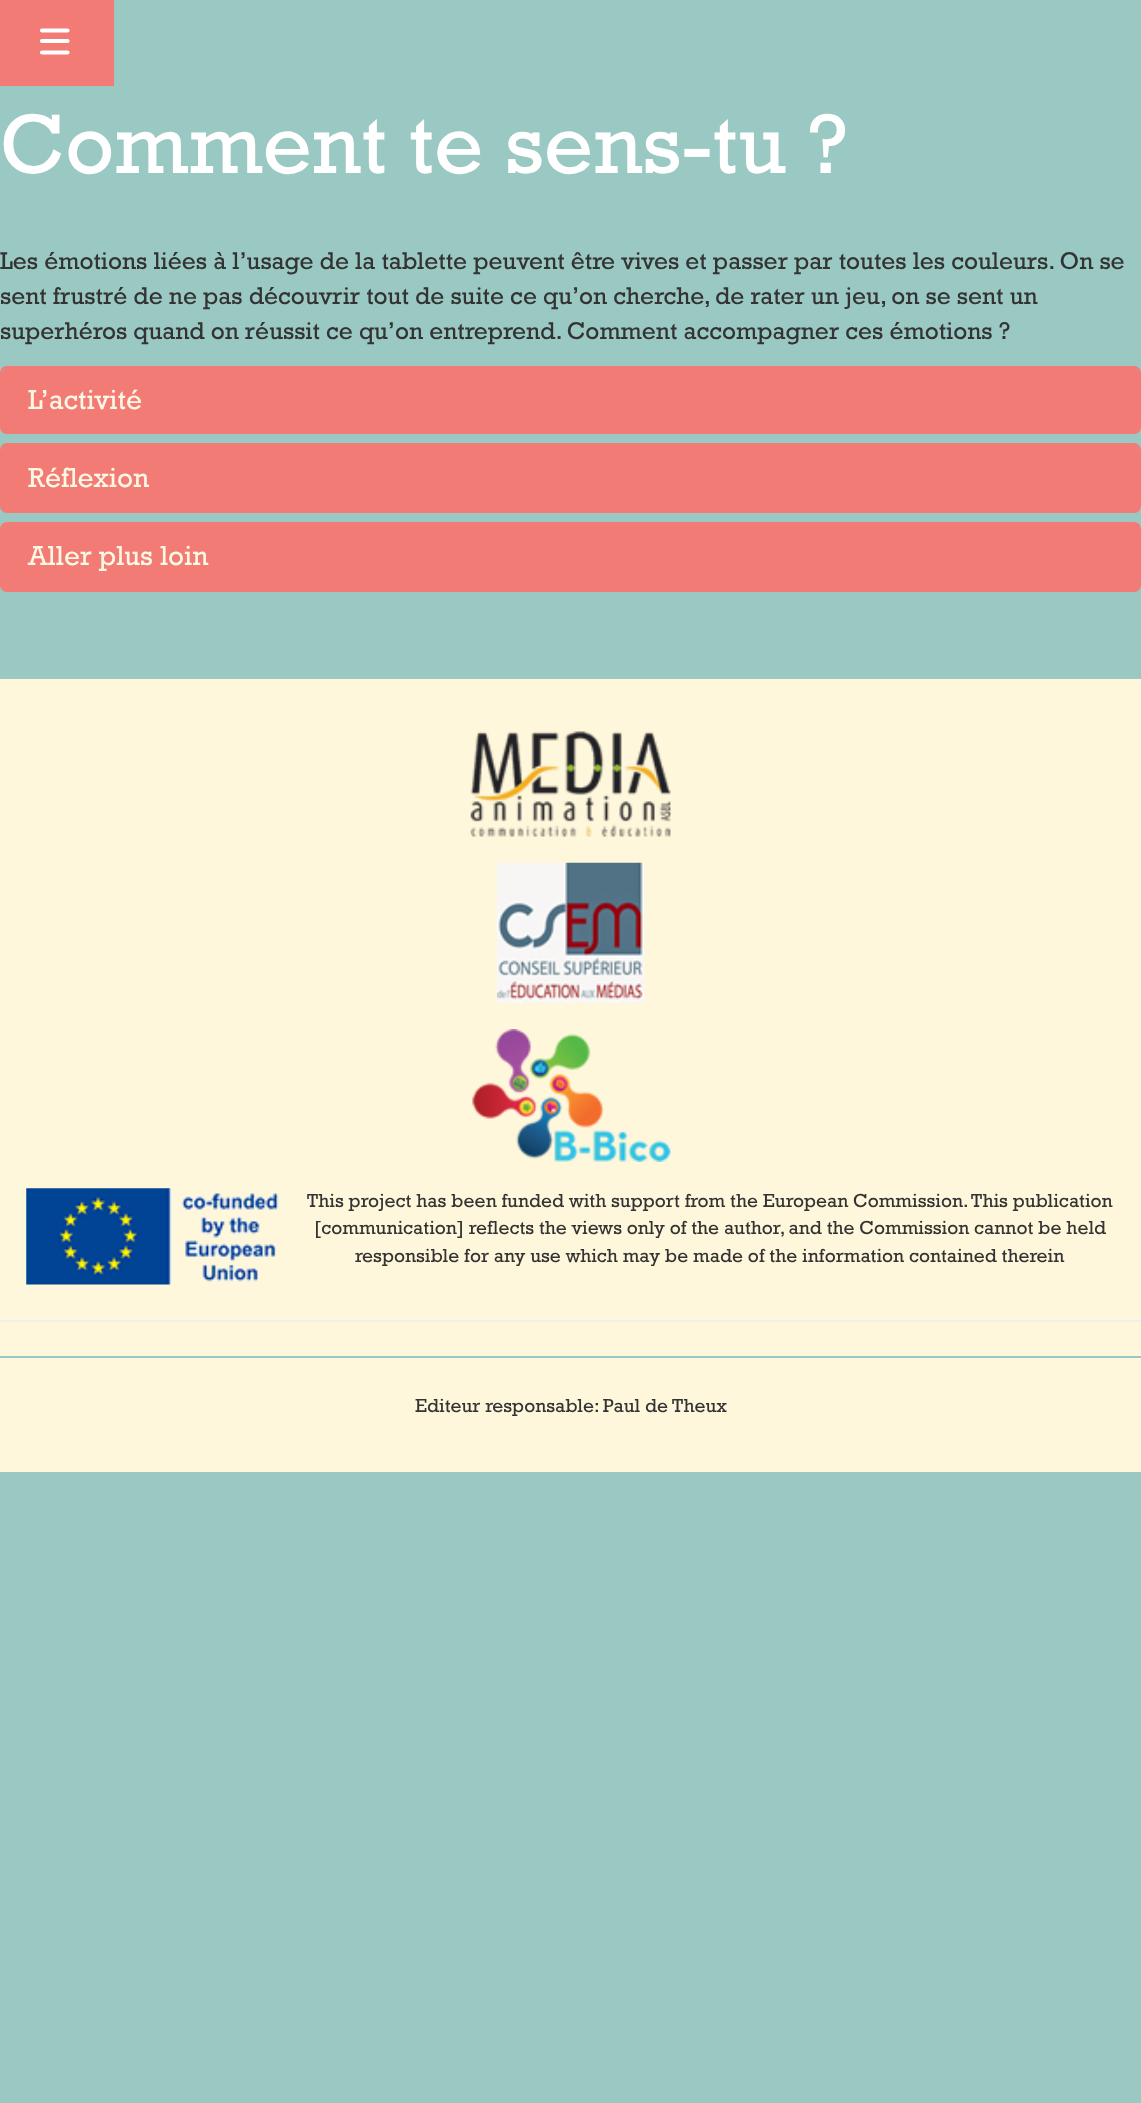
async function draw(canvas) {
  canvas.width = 1141
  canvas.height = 2103
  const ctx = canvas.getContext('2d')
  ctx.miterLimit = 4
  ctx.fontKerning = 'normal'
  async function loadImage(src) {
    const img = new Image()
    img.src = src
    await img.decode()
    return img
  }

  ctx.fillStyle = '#9ac8c3'
  ctx.fillRect(0, 0, 1141, 2103)
  ctx.fillStyle = '#f27b76'
  ctx.fillRect(0, 0, 114, 86)
  ctx.beginPath()
  ctx.moveTo(42, 30.5)
  ctx.lineTo(67.5, 30.5)
  ctx.moveTo(42, 41)
  ctx.lineTo(67.5, 41)
  ctx.moveTo(42, 52.5)
  ctx.lineTo(67.5, 52.5)
  ctx.strokeStyle = '#fff'
  ctx.lineWidth = 4.2
  ctx.lineCap = 'round'
  ctx.stroke()
  ctx.font = '85.75px Rockwell'
  ctx.fillStyle = '#fff'
  ctx.fillText('Comment te sens-tu ?', 0, 173)
  ctx.font = '24.5px Rockwell'
  ctx.fillStyle = '#333'
  ctx.fillText('Les émotions liées à l’usage de la tablette peuvent être vives et passer par toutes les couleurs. On se', 0, 269)
  ctx.fillText('sent frustré de ne pas découvrir tout de suite ce qu’on cherche, de rater un jeu, on se sent un', 0, 304)
  ctx.fillText('superhéros quand on réussit ce qu’on entreprend. Comment accompagner ces émotions ?', 0, 339)
  ctx.beginPath()
  ctx.roundRect(1, 367, 1139, 66, 6)
  ctx.strokeStyle = '#f27b76'
  ctx.lineWidth = 2
  ctx.stroke()
  ctx.fillStyle = '#f27b76'
  ctx.beginPath()
  ctx.roundRect(2, 368, 1137, 64, [5, 5, 0, 0])
  ctx.fill()
  ctx.font = '28px Rockwell'
  ctx.fillStyle = '#fcf8e3'
  ctx.fillText('L’activité', 28, 409)
  ctx.beginPath()
  ctx.roundRect(1, 444, 1139, 68, 6)
  ctx.stroke()
  ctx.fillStyle = '#f27b76'
  ctx.beginPath()
  ctx.roundRect(2, 445, 1137, 66, [5, 5, 0, 0])
  ctx.fill()
  ctx.fillStyle = '#fcf8e3'
  ctx.fillText('Réflexion', 28, 487)
  ctx.beginPath()
  ctx.roundRect(1, 523, 1139, 68, 6)
  ctx.stroke()
  ctx.fillStyle = '#f27b76'
  ctx.beginPath()
  ctx.roundRect(2, 523, 1137, 67, [5, 5, 0, 0])
  ctx.fill()
  ctx.fillStyle = '#fcf8e3'
  ctx.fillText('Aller plus loin', 28, 565)
  ctx.fillStyle = '#fff7db'
  ctx.fillRect(0, 679, 1141, 793)
  ctx.drawImage(await loadImage('image0.png'), 470, 731, 201, 106)
  ctx.drawImage(await loadImage('image1.png'), 497, 862, 147, 141)
  ctx.drawImage(await loadImage('image2.png'), 472, 1029, 199, 133)
  ctx.drawImage(await loadImage('image3.png'), 26, 1188, 253, 97)
  ctx.font = '19.25px Rockwell'
  ctx.fillStyle = '#333'
  ctx.fillText('This project has been funded with support from the European Commission. This publication', 307, 1207)
  ctx.fillText('[communication] reflects the views only of the author, and the Commission cannot be held', 314, 1234)
  ctx.fillText('responsible for any use which may be made of the information contained therein', 355, 1262)
  ctx.fillStyle = '#eee'
  ctx.fillRect(0, 1320, 1141, 2)
  ctx.fillStyle = '#9ac8c3'
  ctx.fillRect(0, 1356, 1141, 2)
  ctx.fillStyle = '#333'
  ctx.fillText('Editeur responsable: Paul de Theux', 415, 1412)
}

draw(document.querySelector('canvas'))
